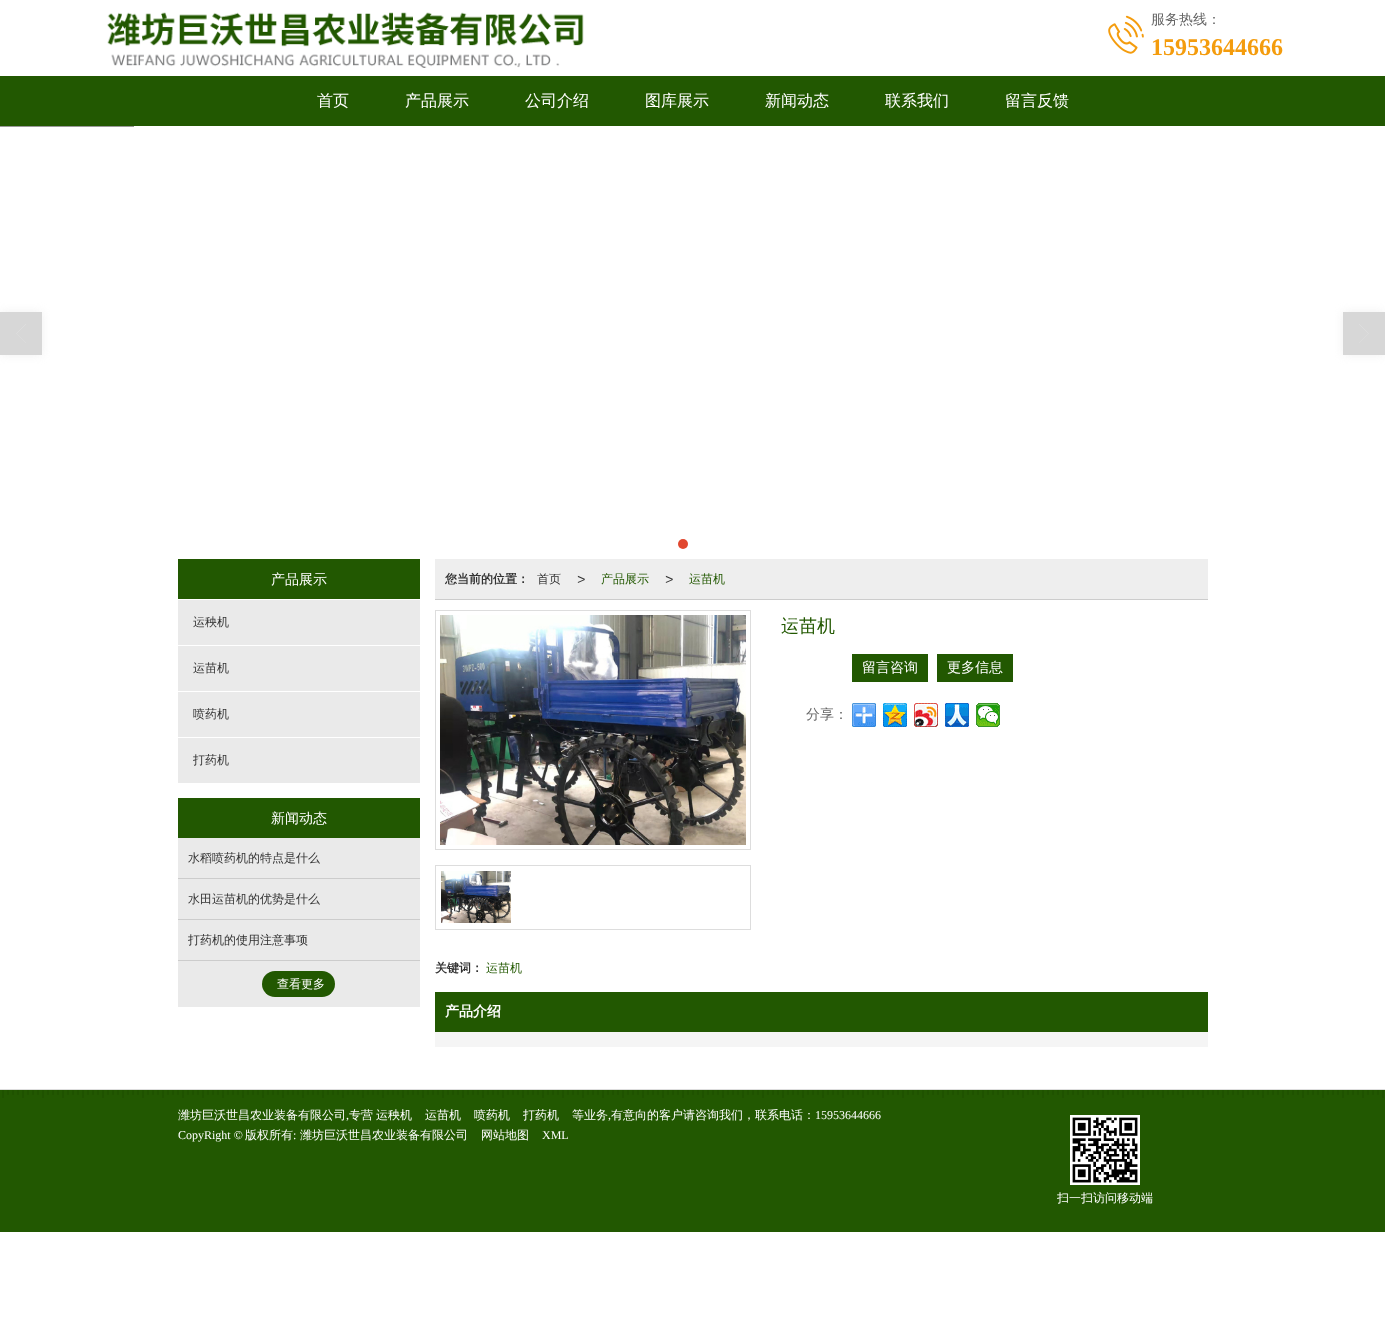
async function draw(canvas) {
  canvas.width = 1385
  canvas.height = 1339
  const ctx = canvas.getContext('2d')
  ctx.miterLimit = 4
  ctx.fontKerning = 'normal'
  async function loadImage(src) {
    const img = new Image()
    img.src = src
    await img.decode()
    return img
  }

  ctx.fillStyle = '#fff'
  ctx.fillRect(0, 0, 1385, 1339)
  ctx.drawImage(await loadImage('image0.png'), 107, 12, 477, 56)
  ctx.drawImage(await loadImage('image1.png'), 1108, 15, 36, 39)
  ctx.font = '500 14px WenQuanYi Zen Hei'
  ctx.fillStyle = '#666'
  ctx.fillText('服务热线：', 1151, 24)
  ctx.font = 'bold 24px Liberation Serif'
  ctx.fillStyle = '#f49c0d'
  ctx.fillText('15953644666', 1151, 55)
  ctx.fillStyle = '#225801'
  ctx.fillRect(0, 76, 1385, 50)
  ctx.font = '500 16px WenQuanYi Zen Hei'
  ctx.fillStyle = '#fff'
  ctx.fillText('首页', 317, 106)
  ctx.fillText('产品展示', 405, 106)
  ctx.fillText('公司介绍', 525, 106)
  ctx.fillText('图库展示', 645, 106)
  ctx.fillText('新闻动态', 765, 106)
  ctx.fillText('联系我们', 885, 106)
  ctx.fillText('留言反馈', 1005, 106)
  ctx.fillStyle = '#999'
  ctx.fillRect(0, 126, 134, 1)
  ctx.fillStyle = '#cccccc4d'
  ctx.filter = 'blur(5px)'
  ctx.beginPath()
  ctx.rect(0, 312, 42, 43)
  ctx.fill()
  ctx.filter = 'none'
  ctx.fillStyle = '#d7d7d7'
  ctx.fillRect(0, 312, 42, 43)
  ctx.drawImage(await loadImage('image2.png'), 16, 324, 10, 19)
  ctx.fillStyle = '#cccccc4d'
  ctx.filter = 'blur(5px)'
  ctx.beginPath()
  ctx.rect(1343, 312, 42, 43)
  ctx.fill()
  ctx.filter = 'none'
  ctx.fillStyle = '#d7d7d7'
  ctx.fillRect(1343, 312, 42, 43)
  ctx.drawImage(await loadImage('image3.png'), 1359, 324, 10, 19)
  ctx.fillStyle = '#e1472f'
  ctx.beginPath()
  ctx.arc(683, 544, 5, 0, 2 * Math.PI)
  ctx.fill()
  ctx.fillStyle = '#225801'
  ctx.fillRect(178, 559, 242, 40)
  ctx.font = '500 14px WenQuanYi Zen Hei'
  ctx.fillStyle = '#fff'
  ctx.fillText('产品展示', 271, 584)
  ctx.fillStyle = '#eaeaea'
  ctx.fillRect(178, 600, 242, 183)
  ctx.font = '500 12px WenQuanYi Zen Hei'
  ctx.fillStyle = '#333'
  ctx.fillText('运秧机', 193, 626)
  ctx.fillStyle = '#fff'
  ctx.fillRect(178, 645, 242, 1)
  ctx.fillStyle = '#333'
  ctx.fillText('运苗机', 193, 672)
  ctx.fillStyle = '#fff'
  ctx.fillRect(178, 691, 242, 1)
  ctx.fillStyle = '#333'
  ctx.fillText('喷药机', 193, 718)
  ctx.fillStyle = '#fff'
  ctx.fillRect(178, 737, 242, 1)
  ctx.fillStyle = '#333'
  ctx.fillText('打药机', 193, 764)
  ctx.fillStyle = '#225801'
  ctx.fillRect(178, 798, 242, 40)
  ctx.font = '500 14px WenQuanYi Zen Hei'
  ctx.fillStyle = '#fff'
  ctx.fillText('新闻动态', 271, 823)
  ctx.fillStyle = '#eaeaea'
  ctx.fillRect(178, 838, 242, 169)
  ctx.fillStyle = '#ccc'
  ctx.fillRect(178, 878, 242, 1)
  ctx.font = '500 12px WenQuanYi Zen Hei'
  ctx.fillStyle = '#333'
  ctx.fillText('水稻喷药机的特点是什么', 188, 862)
  ctx.fillStyle = '#ccc'
  ctx.fillRect(178, 919, 242, 1)
  ctx.fillStyle = '#333'
  ctx.fillText('水田运苗机的优势是什么', 188, 903)
  ctx.fillStyle = '#ccc'
  ctx.fillRect(178, 960, 242, 1)
  ctx.fillStyle = '#333'
  ctx.fillText('打药机的使用注意事项', 188, 944)
  ctx.fillStyle = '#225801'
  ctx.beginPath()
  ctx.roundRect(262, 971, 73, 26, 13)
  ctx.fill()
  ctx.fillStyle = '#fff'
  ctx.fillText('查看更多', 277, 988)
  ctx.fillStyle = '#eee'
  ctx.fillRect(435, 559, 773, 40)
  ctx.fillStyle = '#ccc'
  ctx.fillRect(435, 599, 773, 1)
  ctx.font = 'bold 12px WenQuanYi Zen Hei'
  ctx.fillStyle = '#333'
  ctx.fillText('您当前的位置：', 445, 583)
  ctx.font = '500 12px WenQuanYi Zen Hei'
  ctx.fillText('首页', 537, 583)
  ctx.font = 'italic 14px Liberation Sans'
  ctx.fillText('>', 577, 584)
  ctx.font = '500 12px WenQuanYi Zen Hei'
  ctx.fillStyle = '#225801'
  ctx.fillText('产品展示', 601, 583)
  ctx.font = 'italic 14px Liberation Sans'
  ctx.fillStyle = '#333'
  ctx.fillText('>', 665, 584)
  ctx.font = '500 12px WenQuanYi Zen Hei'
  ctx.fillStyle = '#225801'
  ctx.fillText('运苗机', 689, 583)
  ctx.strokeStyle = '#ddd'
  ctx.strokeRect(435.5, 610.5, 315, 239)
  ctx.drawImage(await loadImage('image4.png'), 440, 615, 306, 230)
  ctx.strokeRect(435.5, 865.5, 315, 64)
  ctx.drawImage(await loadImage('image5.png'), 441, 871, 70, 52)
  ctx.font = '500 18px WenQuanYi Zen Hei'
  ctx.fillText('运苗机', 781, 632)
  ctx.fillRect(852, 654, 76, 28)
  ctx.font = '500 14px WenQuanYi Zen Hei'
  ctx.fillStyle = '#fff'
  ctx.fillText('留言咨询', 862, 672)
  ctx.fillStyle = '#225801'
  ctx.fillRect(937, 654, 76, 28)
  ctx.fillStyle = '#fff'
  ctx.fillText('更多信息', 947, 672)
  ctx.fillStyle = '#666'
  ctx.fillText('分享：', 806, 719)
  ctx.drawImage(await loadImage('image6.png'), 852, 703, 24, 24)
  ctx.drawImage(await loadImage('image7.png'), 883, 703, 24, 24)
  ctx.drawImage(await loadImage('image8.png'), 914, 703, 24, 24)
  ctx.drawImage(await loadImage('image9.png'), 945, 703, 24, 24)
  ctx.drawImage(await loadImage('image10.png'), 976, 703, 24, 24)
  ctx.font = 'bold 12px WenQuanYi Zen Hei'
  ctx.fillStyle = '#333'
  ctx.fillText('关键词：', 435, 972)
  ctx.font = '500 12px WenQuanYi Zen Hei'
  ctx.fillStyle = '#225801'
  ctx.fillText('运苗机', 486, 972)
  ctx.fillStyle = '#f5f5f5'
  ctx.fillRect(435, 1032, 773, 15)
  ctx.fillStyle = '#225801'
  ctx.fillRect(435, 992, 773, 40)
  ctx.font = 'bold 14px WenQuanYi Zen Hei'
  ctx.fillStyle = '#fff'
  ctx.fillText('产品介绍', 445, 1016)
  ctx.fillStyle = '#ddd'
  ctx.fillRect(0, 1089, 1385, 1)
  ctx.fillStyle = '#225801'
  ctx.fillRect(0, 1090, 1385, 142)
  ctx.drawImage(await loadImage('image11.png'), 2, 1090, 1382, 8)
  ctx.font = '500 12px WenQuanYi Zen Hei'
  ctx.fillStyle = '#fff'
  ctx.fillText('潍坊巨沃世昌农业装备有限公司', 178, 1119)
  ctx.font = '12px Liberation Serif'
  ctx.fillText(',', 346, 1119)
  ctx.font = '500 12px WenQuanYi Zen Hei'
  ctx.fillText('专营', 349, 1119)
  ctx.fillText('运秧机', 376, 1119)
  ctx.fillText('运苗机', 425, 1119)
  ctx.fillText('喷药机', 474, 1119)
  ctx.fillText('打药机', 523, 1119)
  ctx.fillText('等业务', 572, 1119)
  ctx.font = '12px Liberation Serif'
  ctx.fillText(',', 608, 1119)
  ctx.font = '500 12px WenQuanYi Zen Hei'
  ctx.fillText('有意向的客户请咨询我们，联系电话：', 611, 1119)
  ctx.font = '12px Liberation Serif'
  ctx.fillText('15953644666', 815, 1119)
  ctx.fillText('CopyRight ©', 178, 1139)
  ctx.font = '500 12px WenQuanYi Zen Hei'
  ctx.fillText('版权所有', 245, 1139)
  ctx.font = '12px Liberation Serif'
  ctx.fillText(':', 293, 1139)
  ctx.font = '500 12px WenQuanYi Zen Hei'
  ctx.fillText('潍坊巨沃世昌农业装备有限公司', 300, 1139)
  ctx.fillText('网站地图', 481, 1139)
  ctx.font = '12px Liberation Serif'
  ctx.fillText('XML', 542, 1139)
  ctx.drawImage(await loadImage('image12.png'), 1070, 1115, 70, 70)
  ctx.font = '500 12px WenQuanYi Zen Hei'
  ctx.fillText('扫一扫访问移动端', 1057, 1202)
}

draw(document.querySelector('canvas'))
